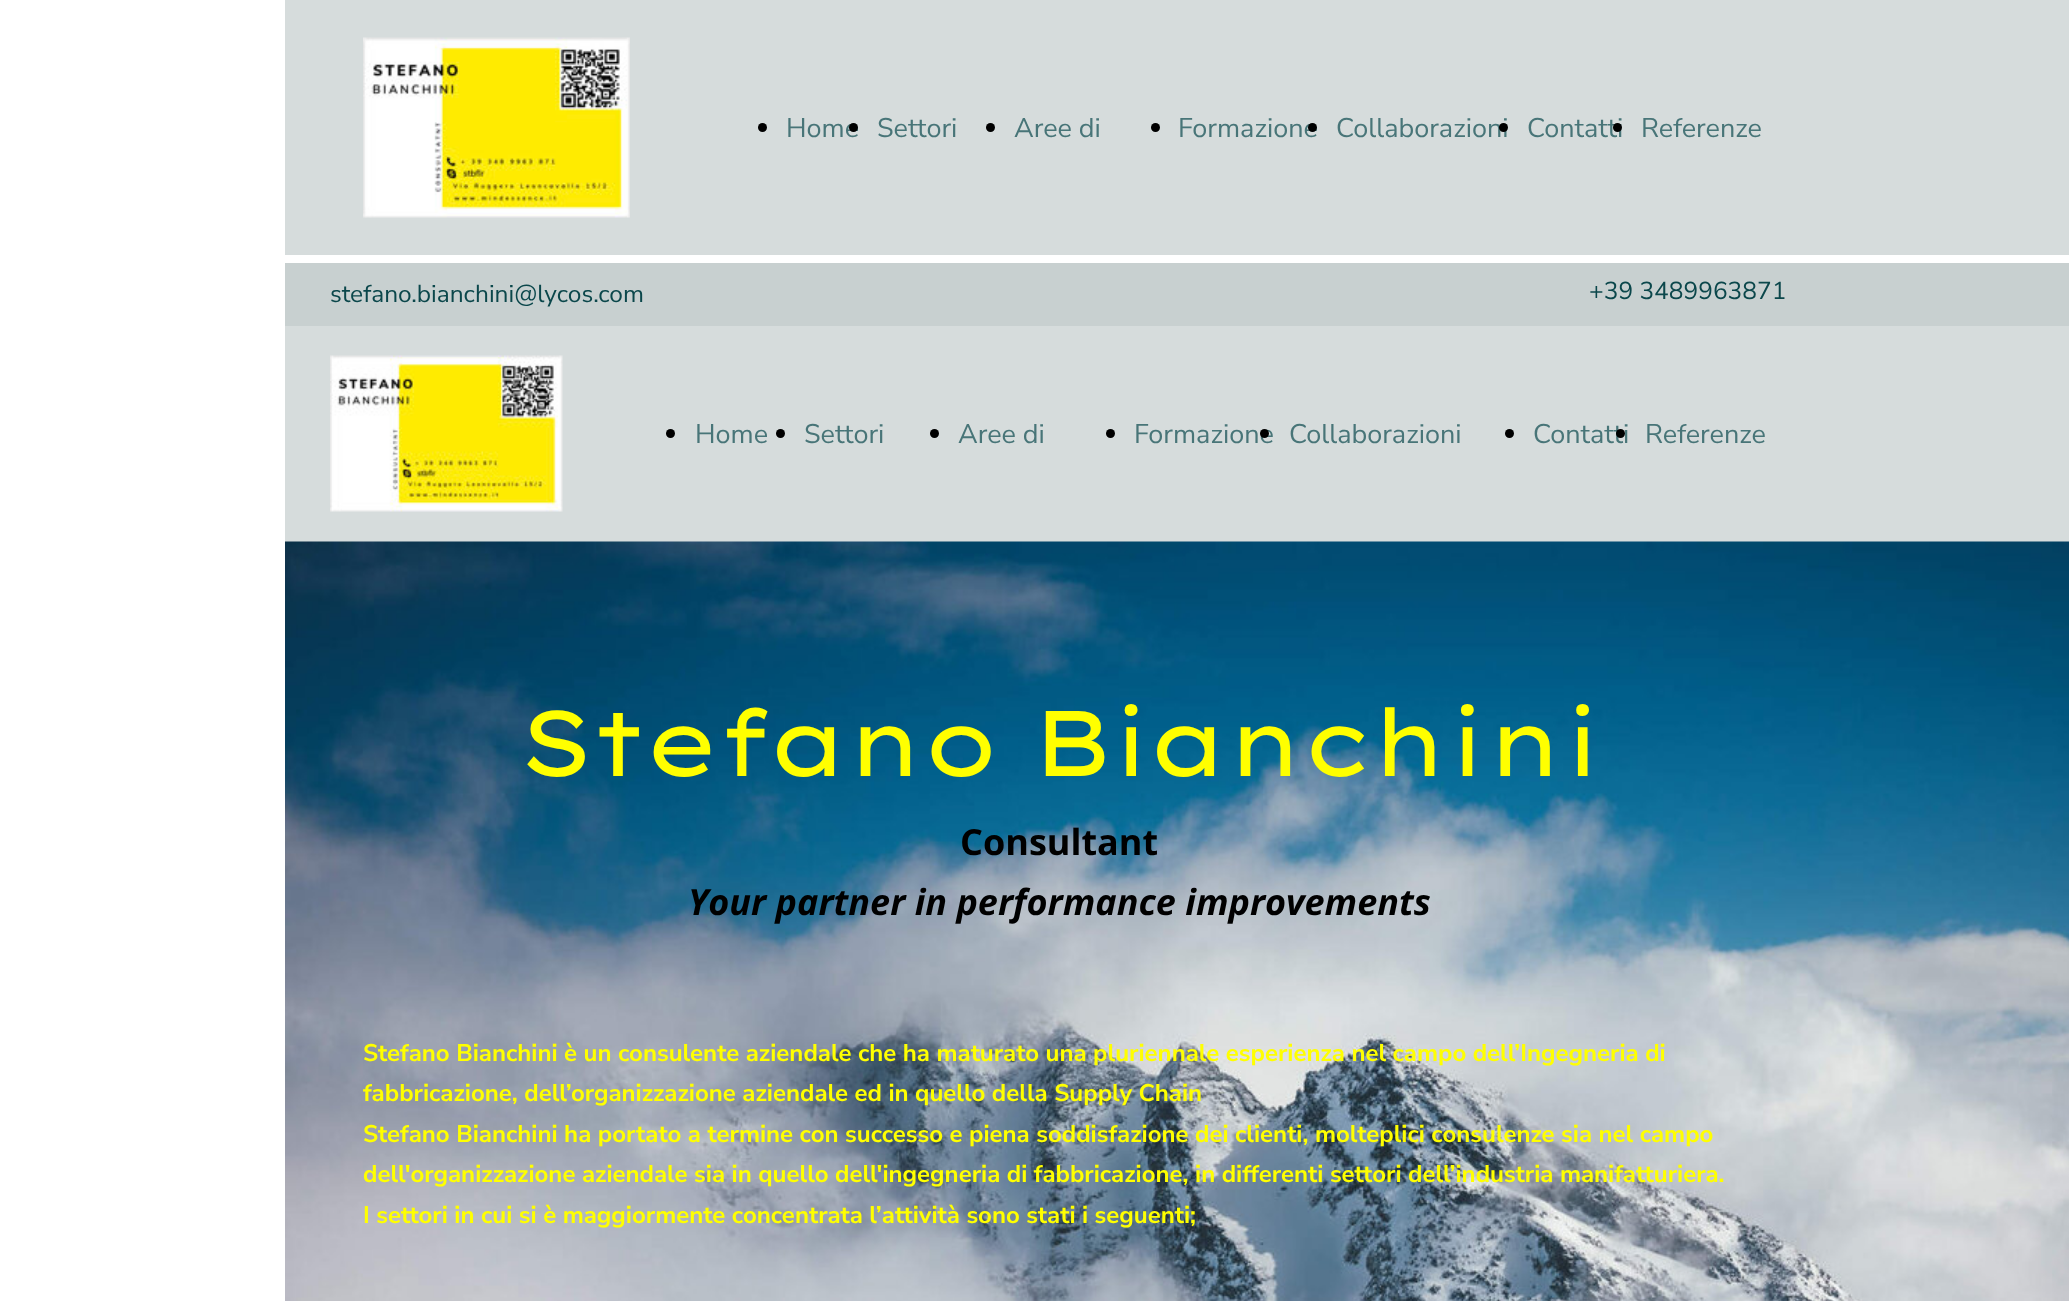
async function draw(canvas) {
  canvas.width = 2069
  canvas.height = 1301
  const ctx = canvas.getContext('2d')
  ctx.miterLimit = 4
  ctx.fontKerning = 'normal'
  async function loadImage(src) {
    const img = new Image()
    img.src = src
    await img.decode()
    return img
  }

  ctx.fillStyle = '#fff'
  ctx.fillRect(0, 0, 2069, 1301)
  ctx.fillStyle = '#d6dcdc'
  ctx.fillRect(285, 0, 1784, 255)
  ctx.drawImage(await loadImage('image0.png'), 363, 37, 267, 181)
  ctx.fillStyle = '#000'
  ctx.beginPath()
  ctx.arc(762.5, 127.5, 4.5, 0, 2 * Math.PI)
  ctx.fill()
  ctx.font = '27px Nunito Sans'
  ctx.fillStyle = '#487578'
  ctx.fillText('Home', 786, 137)
  ctx.fillStyle = '#000'
  ctx.beginPath()
  ctx.arc(853.5, 127.5, 4.5, 0, 2 * Math.PI)
  ctx.fill()
  ctx.fillStyle = '#487578'
  ctx.fillText('Settori', 877, 137)
  ctx.fillStyle = '#000'
  ctx.beginPath()
  ctx.arc(990.5, 127.5, 4.5, 0, 2 * Math.PI)
  ctx.fill()
  ctx.fillStyle = '#487578'
  ctx.fillText('Aree di', 1014, 137)
  ctx.fillStyle = '#000'
  ctx.beginPath()
  ctx.arc(1155.5, 127.5, 4.5, 0, 2 * Math.PI)
  ctx.fill()
  ctx.fillStyle = '#487578'
  ctx.fillText('Formazione', 1178, 137)
  ctx.fillStyle = '#000'
  ctx.beginPath()
  ctx.arc(1312.5, 127.5, 4.5, 0, 2 * Math.PI)
  ctx.fill()
  ctx.fillStyle = '#487578'
  ctx.fillText('Collaborazioni', 1336, 137)
  ctx.fillStyle = '#000'
  ctx.beginPath()
  ctx.arc(1503.5, 127.5, 4.5, 0, 2 * Math.PI)
  ctx.fill()
  ctx.fillStyle = '#487578'
  ctx.fillText('Contatti', 1527, 137)
  ctx.fillStyle = '#000'
  ctx.beginPath()
  ctx.arc(1617.5, 127.5, 4.5, 0, 2 * Math.PI)
  ctx.fill()
  ctx.fillStyle = '#487578'
  ctx.fillText('Referenze', 1641, 137)
  ctx.fillStyle = '#c8d0d0'
  ctx.fillRect(285, 263, 1784, 63)
  ctx.font = '24.5px Nunito Sans'
  ctx.fillStyle = '#0b474b'
  ctx.fillText('stefano.bianchini@lycos.com', 330, 302)
  ctx.fillText('+39 3489963871', 1589, 299)
  ctx.fillStyle = '#d6dcdc'
  ctx.fillRect(285, 326, 1784, 216)
  ctx.drawImage(await loadImage('image1.png'), 330, 355, 233, 157)
  ctx.fillStyle = '#000'
  ctx.beginPath()
  ctx.arc(670.5, 433.5, 4.5, 0, 2 * Math.PI)
  ctx.fill()
  ctx.font = '27px Nunito Sans'
  ctx.fillStyle = '#487578'
  ctx.fillText('Home', 695, 443)
  ctx.fillStyle = '#000'
  ctx.beginPath()
  ctx.arc(780.5, 433.5, 4.5, 0, 2 * Math.PI)
  ctx.fill()
  ctx.fillStyle = '#487578'
  ctx.fillText('Settori', 804, 443)
  ctx.fillStyle = '#000'
  ctx.beginPath()
  ctx.arc(934.5, 433.5, 4.5, 0, 2 * Math.PI)
  ctx.fill()
  ctx.fillStyle = '#487578'
  ctx.fillText('Aree di', 958, 443)
  ctx.fillStyle = '#000'
  ctx.beginPath()
  ctx.arc(1110.5, 433.5, 4.5, 0, 2 * Math.PI)
  ctx.fill()
  ctx.fillStyle = '#487578'
  ctx.fillText('Formazione', 1134, 443)
  ctx.fillStyle = '#000'
  ctx.beginPath()
  ctx.arc(1264.5, 433.5, 4.5, 0, 2 * Math.PI)
  ctx.fill()
  ctx.fillStyle = '#487578'
  ctx.fillText('Collaborazioni', 1289, 443)
  ctx.fillStyle = '#000'
  ctx.beginPath()
  ctx.arc(1509.5, 433.5, 4.5, 0, 2 * Math.PI)
  ctx.fill()
  ctx.fillStyle = '#487578'
  ctx.fillText('Contatti', 1533, 443)
  ctx.fillStyle = '#000'
  ctx.beginPath()
  ctx.arc(1620.5, 433.5, 4.5, 0, 2 * Math.PI)
  ctx.fill()
  ctx.fillStyle = '#487578'
  ctx.fillText('Referenze', 1645, 443)
  ctx.drawImage(await loadImage('image2.png'), 285, 541, 1784, 760)
  ctx.letterSpacing = '-3px'
  ctx.font = '92.75px Lexend Mega'
  ctx.fillStyle = '#ff0'
  ctx.fillText('Stefano Bianchini', 518, 776)
  ctx.letterSpacing = '0px'
  ctx.font = 'bold 36px Open Sans'
  ctx.fillStyle = '#000'
  ctx.fillText('Consultant', 960, 855)
  ctx.font = 'italic bold 36px Open Sans'
  ctx.fillText('Your partner in performance improvements', 688, 915)
  ctx.font = 'bold 24px Nunito Sans'
  ctx.fillStyle = '#ff0'
  ctx.fillText('Stefano Bianchini è un consulente aziendale che ha maturato una pluriennale esperienza nel campo dell’Ingegneria di', 363, 1061)
  ctx.fillText('fabbricazione, dell’organizzazione aziendale ed in quello della Supply Chain', 363, 1101)
  ctx.fillText('Stefano Bianchini ha portato a termine con successo e piena soddisfazione dei clienti, molteplici consulenze sia nel campo', 363, 1142)
  ctx.fillText('dell\'organizzazione aziendale sia in quello dell\'ingegneria di fabbricazione, in differenti settori dell’industria manifatturiera.', 363, 1182)
  ctx.fillText('I settori in cui si è maggiormente concentrata l’attività sono stati i seguenti;', 363, 1223)
}

draw(document.querySelector('canvas'))
